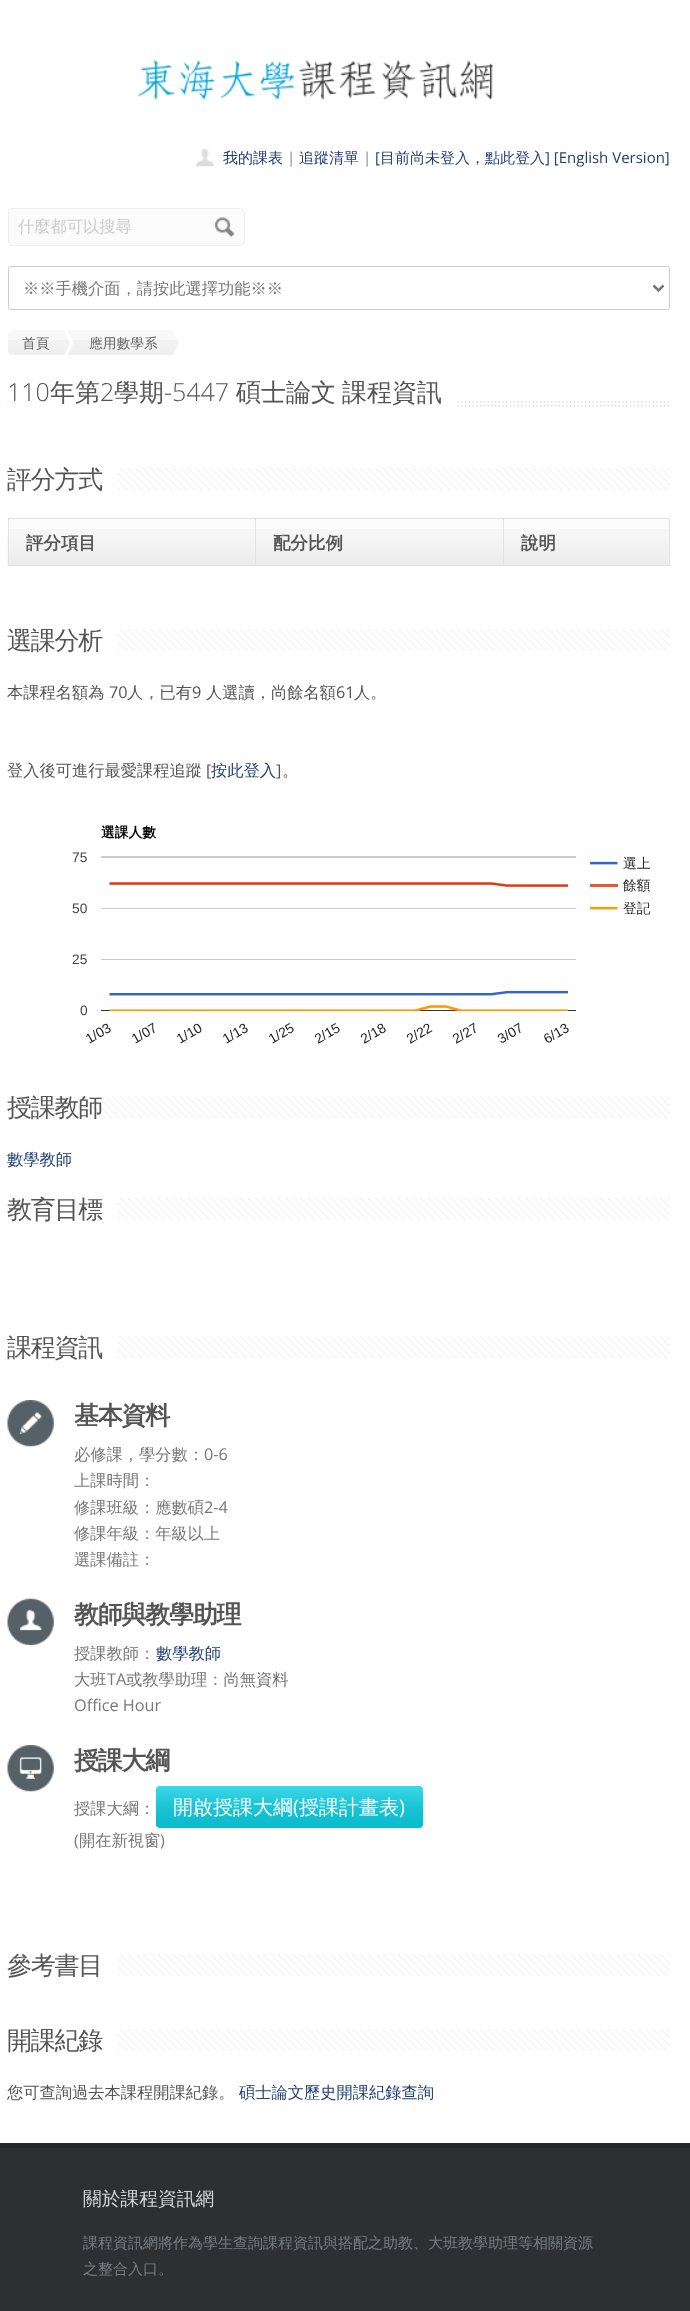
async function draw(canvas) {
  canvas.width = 690
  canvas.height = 2311
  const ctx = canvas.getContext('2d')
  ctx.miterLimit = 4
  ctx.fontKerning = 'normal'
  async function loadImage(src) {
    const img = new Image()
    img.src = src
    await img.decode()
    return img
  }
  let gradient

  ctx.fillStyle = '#fff'
  ctx.fillRect(0, 0, 690, 2311)
  ctx.drawImage(await loadImage('image0.png'), 137, 59, 356, 41)
  ctx.drawImage(await loadImage('image1.png'), 196, 148, 18, 19)
  ctx.font = '500 15px WenQuanYi Zen Hei'
  ctx.fillStyle = '#213e74'
  ctx.fillText('我的課表', 223, 163)
  ctx.font = '15px Open Sans'
  ctx.fillStyle = '#888'
  ctx.fillText('|', 287, 163)
  ctx.font = '500 15px WenQuanYi Zen Hei'
  ctx.fillStyle = '#213e74'
  ctx.fillText('追蹤清單', 299, 163)
  ctx.font = '15px Open Sans'
  ctx.fillStyle = '#888'
  ctx.fillText('|', 363, 163)
  ctx.fillStyle = '#213e74'
  ctx.fillText('[', 375, 163)
  ctx.font = '500 15px WenQuanYi Zen Hei'
  ctx.fillText('目前尚未登入，點此登入', 380, 163)
  ctx.font = '15px Open Sans'
  ctx.fillText('] [English Version]', 545, 163)
  ctx.fillStyle = '#fbfbfb'
  ctx.beginPath()
  ctx.roundRect(8.5, 208.5, 236, 37, 4.5)
  ctx.fill()
  ctx.strokeStyle = '#eee'
  ctx.stroke()
  ctx.font = '500 16.25px WenQuanYi Zen Hei'
  ctx.fillStyle = '#ccc'
  ctx.fillText('什麼都可以搜尋', 18, 232)
  ctx.drawImage(await loadImage('image2.png'), 214, 217, 20, 20)
  ctx.beginPath()
  ctx.roundRect(8.5, 266.5, 661, 43, 2)
  ctx.strokeStyle = '#ccc'
  ctx.stroke()
  ctx.beginPath()
  ctx.moveTo(653.5, 285.5)
  ctx.lineTo(658.5, 290.5)
  ctx.lineTo(663.5, 285.5)
  ctx.strokeStyle = '#777'
  ctx.lineWidth = 2.5
  ctx.stroke()
  ctx.fillStyle = '#777'
  ctx.fillText('※※手機介面，請按此選擇功能※※', 23, 294)
  ctx.fillStyle = '#f8f8f8'
  ctx.beginPath()
  ctx.roundRect(8, 330, 67, 25, [5, 0, 0, 5])
  ctx.fill()
  ctx.drawImage(await loadImage('image3.png'), 8, 340, 67, 15)
  ctx.drawImage(await loadImage('image4.png'), 64, 330, 9, 25)
  ctx.font = '500 13.75px WenQuanYi Zen Hei'
  ctx.fillStyle = '#666'
  ctx.fillText('首頁', 22, 348)
  ctx.fillStyle = '#f8f8f8'
  ctx.fillRect(75, 330, 109, 25)
  ctx.drawImage(await loadImage('image5.png'), 75, 340, 109, 15)
  ctx.drawImage(await loadImage('image6.png'), 173, 330, 11, 25)
  ctx.fillStyle = '#666'
  ctx.fillText('應用數學系', 89, 348)
  ctx.drawImage(await loadImage('image7.png'), 7, 401, 662, 6)
  ctx.fillStyle = '#fff'
  ctx.fillRect(8, 401, 447, 6)
  ctx.font = '300 25px Open Sans'
  ctx.fillStyle = '#555'
  ctx.fillText('110', 7, 401)
  ctx.font = '500 25px WenQuanYi Zen Hei'
  ctx.fillText('年第', 50, 401)
  ctx.font = '300 25px Open Sans'
  ctx.fillText('2', 100, 401)
  ctx.font = '500 25px WenQuanYi Zen Hei'
  ctx.fillText('學期', 114, 401)
  ctx.font = '300 25px Open Sans'
  ctx.fillText('-5447', 164, 401)
  ctx.font = '500 25px WenQuanYi Zen Hei'
  ctx.fillText('碩士論文', 236, 401)
  ctx.fillText('課程資訊', 342, 401)
  ctx.drawImage(await loadImage('image8.png'), 7, 467, 663, 23)
  ctx.fillStyle = '#fff'
  ctx.fillRect(8, 467, 110, 23)
  ctx.letterSpacing = '-1.25px'
  ctx.fillStyle = '#555'
  ctx.fillText('評分方式', 7, 488)
  ctx.fillStyle = '#fcfcfc'
  ctx.fillRect(9, 519, 246, 46)
  ctx.drawImage(await loadImage('image9.png'), 7, 529, 248, 37)
  ctx.fillStyle = '#e2e2e2'
  ctx.fillRect(503, 518, 167, 1)
  ctx.fillStyle = '#fcfcfc'
  ctx.fillRect(256, 519, 247, 46)
  ctx.drawImage(await loadImage('image10.png'), 256, 529, 247, 36)
  ctx.fillRect(504, 519, 165, 46)
  ctx.drawImage(await loadImage('image11.png'), 502, 529, 167, 36)
  ctx.fillStyle = '#e2e2e2'
  ctx.fillRect(669, 518, 1, 48)
  ctx.fillRect(503, 565, 167, 1)
  ctx.fillRect(503, 518, 1, 48)
  ctx.fillRect(255, 518, 249, 1)
  ctx.fillRect(255, 565, 249, 1)
  ctx.fillRect(255, 518, 1, 48)
  ctx.fillRect(8, 518, 248, 1)
  ctx.fillRect(8, 565, 248, 1)
  ctx.fillRect(8, 518, 1, 48)
  ctx.letterSpacing = '0px'
  ctx.font = 'bold 17.5px WenQuanYi Zen Hei'
  ctx.fillStyle = '#555'
  ctx.fillText('評分項目', 26, 549)
  ctx.fillText('配分比例', 273, 549)
  ctx.fillText('說明', 521, 549)
  ctx.drawImage(await loadImage('image12.png'), 7, 629, 663, 22)
  ctx.fillStyle = '#fff'
  ctx.fillRect(8, 629, 110, 22)
  ctx.letterSpacing = '-1.25px'
  ctx.font = '500 25px WenQuanYi Zen Hei'
  ctx.fillStyle = '#555'
  ctx.fillText('選課分析', 7, 649)
  ctx.letterSpacing = '0px'
  ctx.font = '500 16.25px WenQuanYi Zen Hei'
  ctx.fillText('本課程名額為', 7, 698)
  ctx.font = '16.25px Open Sans'
  ctx.fillText('70', 109, 698)
  ctx.font = '500 16.25px WenQuanYi Zen Hei'
  ctx.fillText('人，已有', 127, 698)
  ctx.font = '16.25px Open Sans'
  ctx.fillText('9', 192, 698)
  ctx.font = '500 16.25px WenQuanYi Zen Hei'
  ctx.fillText('人選讀，尚餘名額', 206, 698)
  ctx.font = '16.25px Open Sans'
  ctx.fillText('61', 336, 698)
  ctx.font = '500 16.25px WenQuanYi Zen Hei'
  ctx.fillText('人。', 354, 698)
  ctx.fillText('登入後可進行最愛課程追蹤', 7, 776)
  ctx.font = '16.25px Open Sans'
  ctx.fillText('[', 206, 776)
  ctx.font = '500 16.25px WenQuanYi Zen Hei'
  ctx.fillStyle = '#213e74'
  ctx.fillText('按此登入', 211, 776)
  ctx.font = '16.25px Open Sans'
  ctx.fillStyle = '#555'
  ctx.fillText(']', 276, 776)
  ctx.font = '500 16.25px WenQuanYi Zen Hei'
  ctx.fillText('。', 282, 776)
  ctx.font = 'bold 13.75px WenQuanYi Zen Hei'
  ctx.fillStyle = '#000'
  ctx.fillText('選課人數', 101, 837)
  ctx.font = '13.75px Liberation Sans'
  ctx.fillStyle = '#444'
  ctx.fillText('75', 72, 862)
  ctx.drawImage(await loadImage('image13.png'), 101, 856, 517, 155)
  ctx.font = '500 13.75px WenQuanYi Zen Hei'
  ctx.fillStyle = '#222'
  ctx.fillText('選上', 623, 868)
  ctx.fillText('餘額', 623, 890)
  ctx.font = '13.75px Liberation Sans'
  ctx.fillStyle = '#444'
  ctx.fillText('50', 72, 913)
  ctx.font = '500 13.75px WenQuanYi Zen Hei'
  ctx.fillStyle = '#222'
  ctx.fillText('登記', 623, 913)
  ctx.font = '13.75px Liberation Sans'
  ctx.fillStyle = '#444'
  ctx.fillText('25', 72, 964)
  ctx.fillText('0', 80, 1015)
  ctx.fillStyle = '#222'
  ctx.save()
  ctx.translate(89, 1044)
  ctx.rotate(-30 * Math.PI / 180)
  ctx.fillText('1/03', 0, 0)
  ctx.restore()
  ctx.save()
  ctx.translate(135, 1044)
  ctx.rotate(-30 * Math.PI / 180)
  ctx.fillText('1/07', 0, 0)
  ctx.restore()
  ctx.save()
  ctx.translate(180, 1044)
  ctx.rotate(-30 * Math.PI / 180)
  ctx.fillText('1/10', 0, 0)
  ctx.restore()
  ctx.save()
  ctx.translate(226, 1044)
  ctx.rotate(-30 * Math.PI / 180)
  ctx.fillText('1/13', 0, 0)
  ctx.restore()
  ctx.save()
  ctx.translate(272, 1044)
  ctx.rotate(-30 * Math.PI / 180)
  ctx.fillText('1/25', 0, 0)
  ctx.restore()
  ctx.save()
  ctx.translate(318, 1044)
  ctx.rotate(-30 * Math.PI / 180)
  ctx.fillText('2/15', 0, 0)
  ctx.restore()
  ctx.save()
  ctx.translate(364, 1044)
  ctx.rotate(-30 * Math.PI / 180)
  ctx.fillText('2/18', 0, 0)
  ctx.restore()
  ctx.save()
  ctx.translate(410, 1044)
  ctx.rotate(-30 * Math.PI / 180)
  ctx.fillText('2/22', 0, 0)
  ctx.restore()
  ctx.save()
  ctx.translate(456, 1044)
  ctx.rotate(-30 * Math.PI / 180)
  ctx.fillText('2/27', 0, 0)
  ctx.restore()
  ctx.save()
  ctx.translate(501, 1044)
  ctx.rotate(-30 * Math.PI / 180)
  ctx.fillText('3/07', 0, 0)
  ctx.restore()
  ctx.save()
  ctx.translate(547, 1044)
  ctx.rotate(-30 * Math.PI / 180)
  ctx.fillText('6/13', 0, 0)
  ctx.restore()
  ctx.drawImage(await loadImage('image14.png'), 7, 1096, 663, 23)
  ctx.letterSpacing = '-1.25px'
  ctx.font = '500 25px WenQuanYi Zen Hei'
  ctx.fillStyle = '#555'
  ctx.fillText('授課教師', 7, 1116)
  ctx.letterSpacing = '0px'
  ctx.font = '500 16.25px WenQuanYi Zen Hei'
  ctx.fillStyle = '#213e74'
  ctx.fillText('數學教師', 7, 1165)
  ctx.drawImage(await loadImage('image8.png'), 7, 1197, 663, 23)
  ctx.fillStyle = '#fff'
  ctx.fillRect(8, 1197, 110, 23)
  ctx.letterSpacing = '-1.25px'
  ctx.font = '500 25px WenQuanYi Zen Hei'
  ctx.fillStyle = '#555'
  ctx.fillText('教育目標', 7, 1218)
  ctx.drawImage(await loadImage('image14.png'), 7, 1336, 663, 23)
  ctx.fillStyle = '#fff'
  ctx.fillRect(8, 1336, 110, 23)
  ctx.fillStyle = '#555'
  ctx.fillText('課程資訊', 7, 1356)
  ctx.drawImage(await loadImage('image15.png'), 7, 1400, 47, 47)
  ctx.font = 'bold 25px WenQuanYi Zen Hei'
  ctx.fillText('基本資料', 74, 1424)
  ctx.letterSpacing = '0px'
  ctx.font = '500 16.25px WenQuanYi Zen Hei'
  ctx.fillStyle = '#777'
  ctx.fillText('必修課，學分數：', 74, 1460)
  ctx.font = '16.25px Open Sans'
  ctx.fillText('0-6', 204, 1460)
  ctx.font = '500 16.25px WenQuanYi Zen Hei'
  ctx.fillText('上課時間：', 74, 1486)
  ctx.fillText('修課班級：應數碩', 74, 1513)
  ctx.font = '16.25px Open Sans'
  ctx.fillText('2-4', 204, 1513)
  ctx.font = '500 16.25px WenQuanYi Zen Hei'
  ctx.fillText('修課年級：年級以上', 74, 1539)
  ctx.fillText('選課備註：', 74, 1565)
  ctx.drawImage(await loadImage('image16.png'), 7, 1598, 47, 47)
  ctx.letterSpacing = '-1.25px'
  ctx.font = 'bold 25px WenQuanYi Zen Hei'
  ctx.fillStyle = '#555'
  ctx.fillText('教師與教學助理', 74, 1623)
  ctx.letterSpacing = '0px'
  ctx.font = '500 16.25px WenQuanYi Zen Hei'
  ctx.fillStyle = '#777'
  ctx.fillText('授課教師：', 74, 1659)
  ctx.fillStyle = '#213e74'
  ctx.fillText('數學教師', 156, 1659)
  ctx.fillStyle = '#777'
  ctx.fillText('大班', 74, 1685)
  ctx.font = '16.25px Open Sans'
  ctx.fillText('TA', 107, 1685)
  ctx.font = '500 16.25px WenQuanYi Zen Hei'
  ctx.fillText('或教學助理：尚無資料', 126, 1685)
  ctx.font = '16.25px Open Sans'
  ctx.fillText('Office Hour', 74, 1711)
  ctx.drawImage(await loadImage('image17.png'), 7, 1745, 47, 47)
  ctx.letterSpacing = '-1.25px'
  ctx.font = 'bold 25px WenQuanYi Zen Hei'
  ctx.fillStyle = '#555'
  ctx.fillText('授課大綱', 74, 1769)
  ctx.letterSpacing = '0px'
  ctx.font = '500 16.25px WenQuanYi Zen Hei'
  ctx.fillStyle = '#777'
  ctx.fillText('授課大綱：', 74, 1814)
  ctx.fillStyle = '#0ad1e5'
  ctx.beginPath()
  ctx.roundRect(156, 1786, 267, 42, 4)
  ctx.fill()
  gradient = ctx.createLinearGradient(289, 1786, 289, 1828)
  gradient.addColorStop(0, '#ffffff33')
  gradient.addColorStop(1, '#0000001a')
  ctx.fillStyle = gradient
  ctx.beginPath()
  ctx.roundRect(156, 1786, 267, 42, 4)
  ctx.fill()
  ctx.font = '500 20px WenQuanYi Zen Hei'
  ctx.fillStyle = '#fff'
  ctx.fillText('開啟授課大綱 授課計畫表', 173, 1814)
  ctx.font = '20px Open Sans'
  ctx.fillText('(', 293, 1814)
  ctx.fillText(')', 399, 1814)
  ctx.font = '16.25px Open Sans'
  ctx.fillStyle = '#777'
  ctx.fillText('(', 74, 1846)
  ctx.font = '500 16.25px WenQuanYi Zen Hei'
  ctx.fillText('開在新視窗', 79, 1846)
  ctx.font = '16.25px Open Sans'
  ctx.fillText(')', 160, 1846)
  ctx.drawImage(await loadImage('image12.png'), 7, 1954, 663, 22)
  ctx.fillStyle = '#fff'
  ctx.fillRect(8, 1954, 110, 22)
  ctx.letterSpacing = '-1.25px'
  ctx.font = '500 25px WenQuanYi Zen Hei'
  ctx.fillStyle = '#555'
  ctx.fillText('參考書目', 7, 1974)
  ctx.drawImage(await loadImage('image12.png'), 7, 2029, 663, 22)
  ctx.fillStyle = '#fff'
  ctx.fillRect(8, 2029, 110, 22)
  ctx.fillStyle = '#555'
  ctx.fillText('開課紀錄', 7, 2049)
  ctx.letterSpacing = '0px'
  ctx.font = '500 16.25px WenQuanYi Zen Hei'
  ctx.fillText('您可查詢過去本課程開課紀錄。', 7, 2098)
  ctx.fillStyle = '#213e74'
  ctx.fillText('碩士論文歷史開課紀錄查詢', 239, 2098)
  ctx.fillStyle = '#2d3032'
  ctx.fillRect(0, 2148, 690, 163)
  ctx.fillStyle = '#242628'
  ctx.fillRect(0, 2143, 690, 5)
  ctx.font = '500 18.75px WenQuanYi Zen Hei'
  ctx.fillStyle = '#d1d6d9'
  ctx.fillText('關於課程資訊網', 83, 2205)
  ctx.font = '500 15px WenQuanYi Zen Hei'
  ctx.fillStyle = '#757d82'
  ctx.fillText('課程資訊網將作為學生查詢課程資訊與搭配之助教、大班教學助理等相關資源', 83, 2248)
  ctx.fillText('之整合入口。', 83, 2274)
}

draw(document.querySelector('canvas'))
